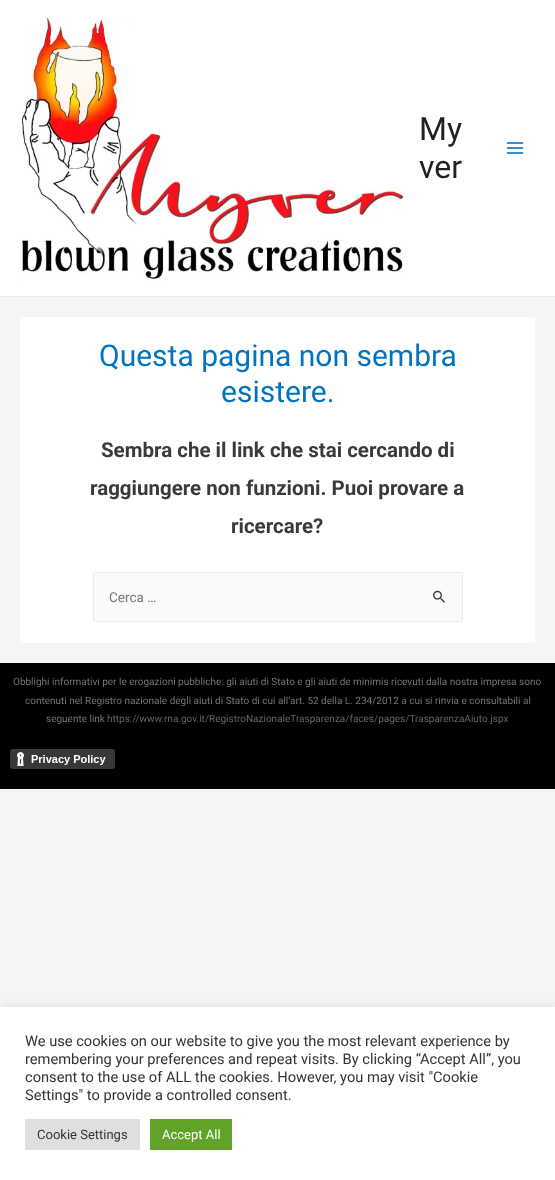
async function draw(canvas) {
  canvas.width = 555
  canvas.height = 1180
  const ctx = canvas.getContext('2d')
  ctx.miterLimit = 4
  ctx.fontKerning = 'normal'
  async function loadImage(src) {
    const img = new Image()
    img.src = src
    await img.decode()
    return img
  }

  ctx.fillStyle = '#f5f5f5'
  ctx.fillRect(0, 0, 555, 1180)
  ctx.fillStyle = '#fff'
  ctx.fillRect(0, 0, 555, 296)
  ctx.fillStyle = '#eaeaea'
  ctx.fillRect(0, 296, 555, 1)
  ctx.drawImage(await loadImage('image0.png'), 20, 17, 386, 264)
  ctx.font = '32px Roboto'
  ctx.fillStyle = '#222'
  ctx.fillText('My', 419, 140)
  ctx.fillText('ver', 419, 178)
  ctx.drawImage(await loadImage('image1.png'), 506, 142, 18, 12)
  ctx.fillStyle = '#fff'
  ctx.fillRect(20, 317, 515, 326)
  ctx.font = '30px Roboto'
  ctx.fillStyle = '#0274be'
  ctx.fillText('Questa pagina non sembra', 99, 366)
  ctx.fillText('esistere.', 221, 402)
  ctx.font = 'bold 20.5px Roboto'
  ctx.fillStyle = '#3a3a3a'
  ctx.fillText('Sembra che il link che stai cercando di', 101, 457)
  ctx.fillText('raggiungere non funzioni. Puoi provare a', 90, 495)
  ctx.fillText('ricercare?', 231, 533)
  ctx.fillStyle = '#fafafa'
  ctx.beginPath()
  ctx.roundRect(93.5, 572.5, 369, 49, 1.5)
  ctx.fill()
  ctx.strokeStyle = '#eaeaea'
  ctx.stroke()
  ctx.font = '13.5px Roboto'
  ctx.fillStyle = '#757575'
  ctx.fillText('Cerca …', 109, 602)
  ctx.drawImage(await loadImage('image2.png'), 433, 590, 12, 13)
  ctx.fillStyle = '#000'
  ctx.fillRect(0, 663, 555, 126)
  ctx.font = '10px Roboto'
  ctx.fillStyle = '#757575'
  ctx.fillText('Obblighi informativi per le erogazioni pubbliche: gli aiuti di Stato e gli aiuti de minimis ricevuti dalla nostra impresa sono', 13, 685)
  ctx.fillText('contenuti nel Registro nazionale degli aiuti di Stato di cui all’art. 52 della L. 234/2012 a cui si rinvia e consultabili al', 25, 704)
  ctx.fillText('seguente link', 46, 722)
  ctx.fillStyle = '#666'
  ctx.fillText('https://www.rna.gov.it/RegistroNazionaleTrasparenza/faces/pages/TrasparenzaAiuto.jspx', 107, 722)
  ctx.drawImage(await loadImage('image3.png'), 10, 749, 105, 20)
  ctx.fillStyle = '#acabab4d'
  ctx.filter = 'blur(5px)'
  ctx.beginPath()
  ctx.rect(0, 1006, 555, 173)
  ctx.fill()
  ctx.filter = 'none'
  ctx.fillStyle = '#fff'
  ctx.fillRect(0, 1007, 555, 173)
  ctx.font = '14.65px Roboto'
  ctx.fillStyle = '#333'
  ctx.fillText('We use cookies on our website to give you the most relevant experience by', 25, 1046)
  ctx.fillText('remembering your preferences and repeat visits. By clicking “Accept All”, you', 25, 1064)
  ctx.fillText('consent to the use of ALL the cookies. However, you may visit "Cookie', 25, 1082)
  ctx.fillText('Settings" to provide a controlled consent.', 25, 1100)
  ctx.fillStyle = '#dedfe0'
  ctx.fillRect(25, 1119, 115, 31)
  ctx.font = '13px Roboto'
  ctx.fillStyle = '#333'
  ctx.fillText('Cookie Settings', 37, 1139)
  ctx.fillStyle = '#61a229'
  ctx.fillRect(150, 1119, 82, 31)
  ctx.fillStyle = '#fff'
  ctx.fillText('Accept All', 162, 1139)
}

draw(document.querySelector('canvas'))
